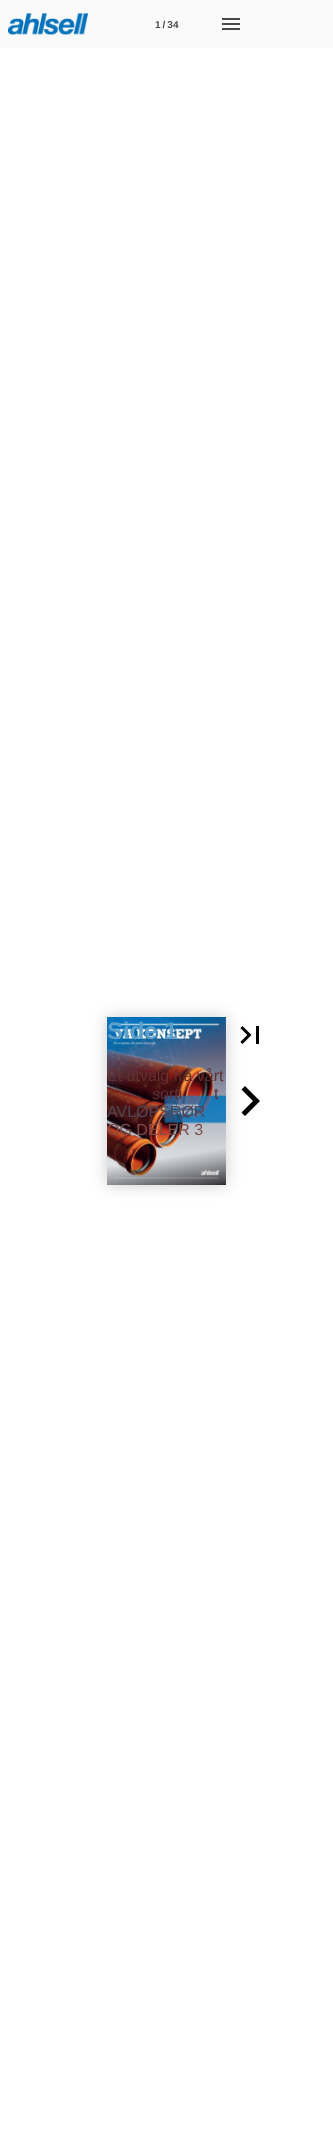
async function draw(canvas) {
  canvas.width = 333
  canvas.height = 2153
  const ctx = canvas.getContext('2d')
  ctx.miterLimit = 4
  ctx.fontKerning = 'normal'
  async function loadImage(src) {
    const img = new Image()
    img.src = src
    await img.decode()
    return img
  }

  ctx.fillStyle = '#fff'
  ctx.fillRect(0, 0, 333, 2153)
  ctx.fillStyle = '#fafafa'
  ctx.fillRect(0, 0, 333, 48)
  ctx.drawImage(await loadImage('image0.png'), 8, 13, 80, 22)
  ctx.font = 'bold 10px Liberation Sans'
  ctx.fillStyle = '#4a4a4a'
  ctx.fillText('1 / 34', 155, 28)
  ctx.drawImage(await loadImage('image1.png'), 222, 18, 18, 12)
  ctx.fillStyle = '#00000033'
  ctx.filter = 'blur(8px)'
  ctx.beginPath()
  ctx.rect(107, 1017, 119, 168)
  ctx.fill()
  ctx.filter = 'none'
  ctx.drawImage(await loadImage('image2.png'), 107, 1017, 119, 168)
  ctx.font = 'bold 24px Liberation Sans'
  ctx.fillStyle = '#5e9fca'
  ctx.fillText('Side 1', 107, 1039)
  ctx.font = '16px Liberation Sans'
  ctx.fillStyle = '#623130'
  ctx.fillText('Et utvalg fra vårt', 107, 1081)
  ctx.fillStyle = '#5b3035'
  ctx.fillText('sorti', 152, 1099)
  ctx.fillText('t', 214, 1099)
  ctx.fillStyle = '#534654'
  ctx.fillText('AVLØPSRØR', 107, 1117)
  ctx.fillStyle = '#7f4d49'
  ctx.fillText('OG DELER 3', 107, 1135)
  ctx.drawImage(await loadImage('image3.png'), 240, 1026, 19, 18)
  ctx.fillStyle = '#000'
  ctx.beginPath()
  ctx.moveTo(245, 1086)
  ctx.lineTo(241.5, 1089.5)
  ctx.lineTo(253, 1101)
  ctx.lineTo(241.5, 1112.5)
  ctx.lineTo(245, 1116)
  ctx.lineTo(260, 1101)
  ctx.closePath()
  ctx.fill()
}

draw(document.querySelector('canvas'))
